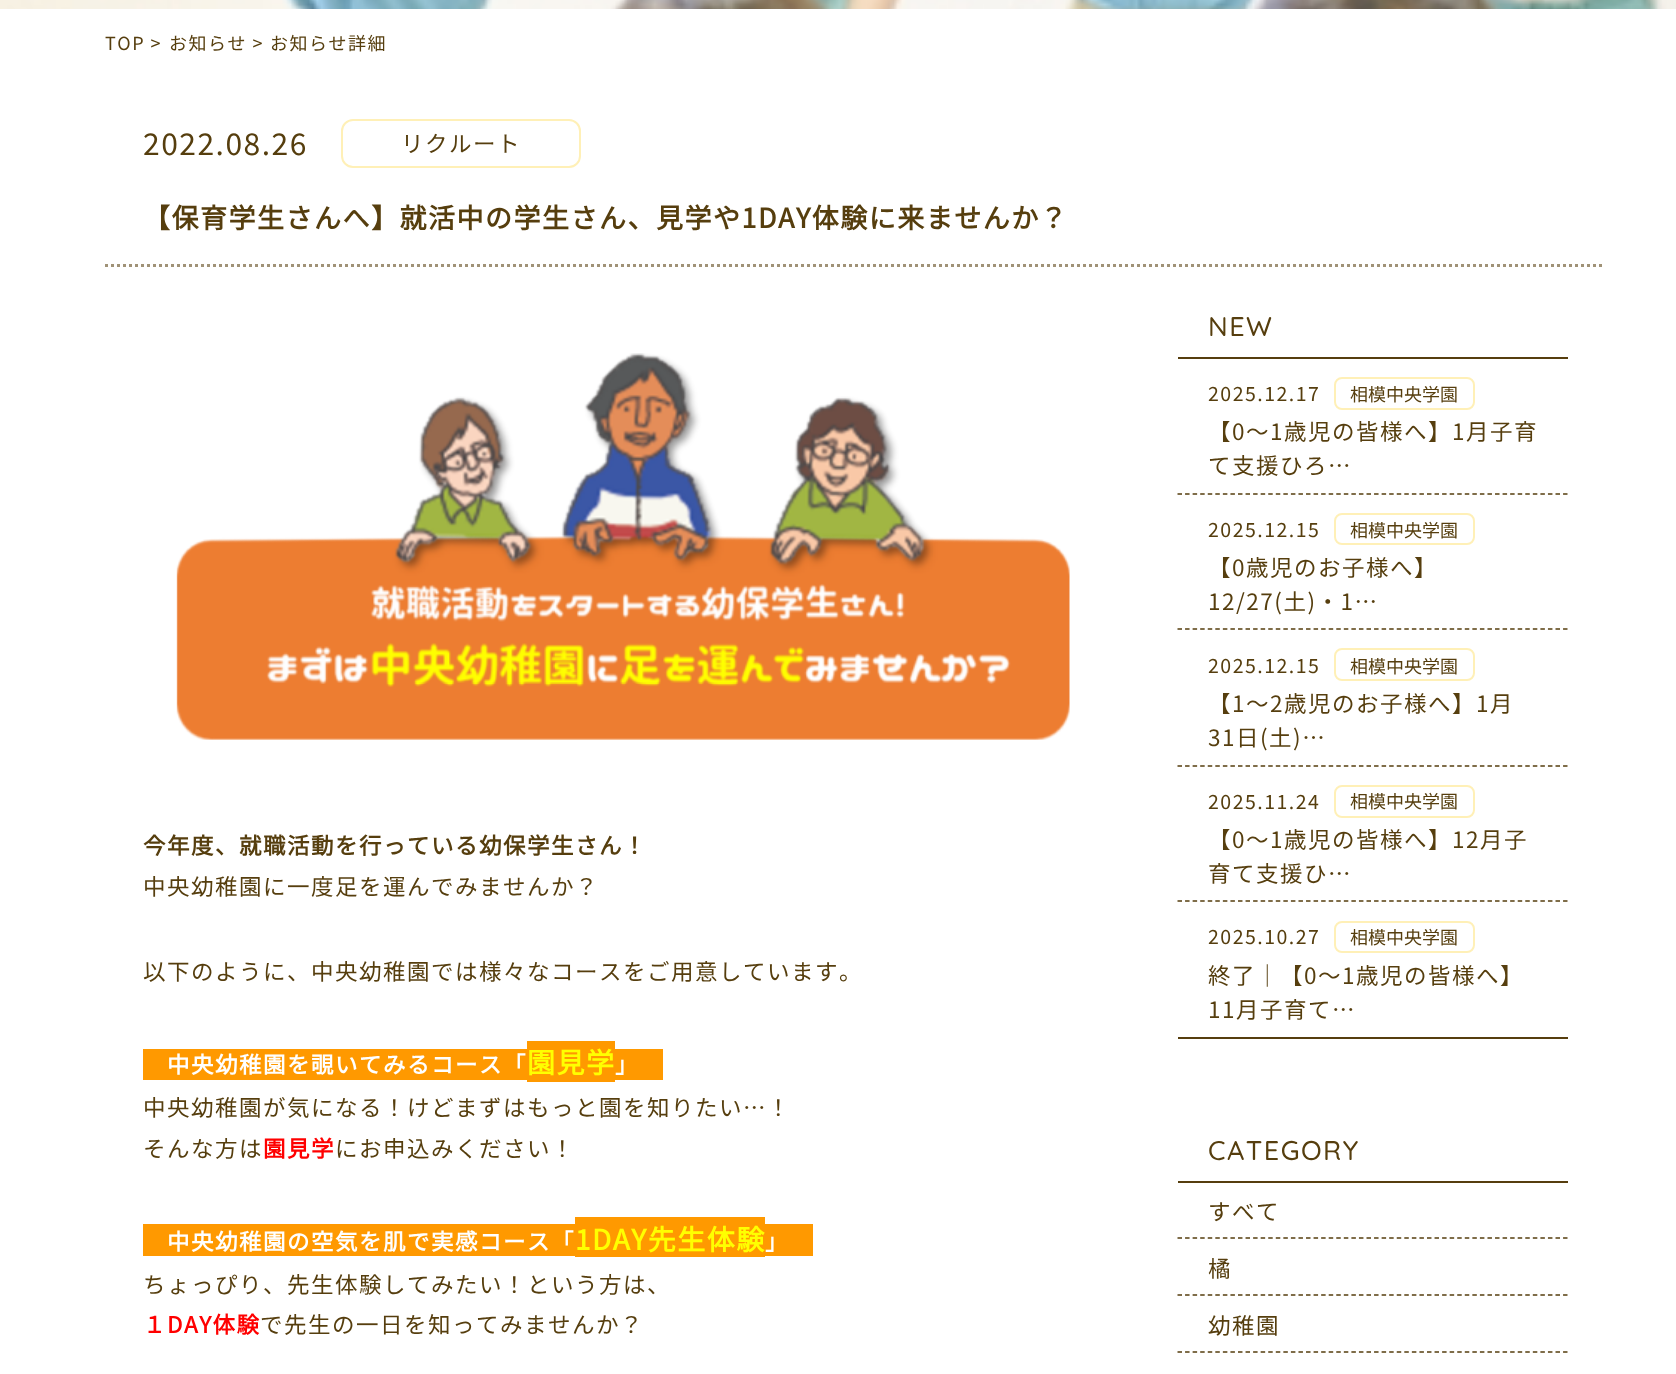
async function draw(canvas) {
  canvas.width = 1676
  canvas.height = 1374
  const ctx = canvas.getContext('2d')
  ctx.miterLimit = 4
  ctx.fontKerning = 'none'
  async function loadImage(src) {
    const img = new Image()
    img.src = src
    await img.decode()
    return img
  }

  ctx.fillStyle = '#fff'
  ctx.fillRect(0, 0, 1676, 1374)
  ctx.drawImage(await loadImage('image0.png'), 0, 0, 1676, 9)
  ctx.letterSpacing = '1.5px'
  ctx.font = '100 18px Noto Sans JP'
  ctx.fillStyle = '#563e0e'
  ctx.fillText('TOP >', 105, 50)
  ctx.fillText('お知らせ >', 169, 50)
  ctx.fillText('お知らせ詳細', 270, 50)
  ctx.font = '100 30px Noto Sans JP'
  ctx.fillText('2022.08.26', 143, 155)
  ctx.beginPath()
  ctx.roundRect(342, 120, 238, 47, 11)
  ctx.strokeStyle = '#fff0b7'
  ctx.lineWidth = 2
  ctx.stroke()
  ctx.font = '100 22.5px Noto Sans JP'
  ctx.fillText('リクルート', 401, 152)
  ctx.beginPath()
  ctx.moveTo(105, 265.5)
  ctx.lineTo(1605, 265.5)
  ctx.strokeStyle = '#a09277'
  ctx.lineWidth = 3
  ctx.setLineDash([3, 3])
  ctx.stroke()
  ctx.font = 'bold 27px Noto Sans JP'
  ctx.fillText('【保育学生さんへ】就活中の学生さん、見学や1DAY体験に来ませんか？', 143, 228)
  ctx.drawImage(await loadImage('image1.png'), 176, 353, 894, 387)
  ctx.font = 'bold 22.5px Noto Sans JP'
  ctx.fillText('今年度、就職活動を行っている幼保学生さん！', 143, 854)
  ctx.font = '100 22.5px Noto Sans JP'
  ctx.fillText('中央幼稚園に一度足を運んでみませんか？', 143, 895)
  ctx.fillText('以下のように、中央幼稚園では様々なコースをご用意しています。', 143, 980)
  ctx.fillStyle = '#f90'
  ctx.fillRect(143, 1049, 384, 31)
  ctx.font = 'bold 22.5px Noto Sans JP'
  ctx.fillStyle = '#fff'
  ctx.fillText('中央幼稚園を覗いてみるコース「', 167, 1073)
  ctx.fillStyle = '#f90'
  ctx.fillRect(527, 1041, 88, 41)
  ctx.font = 'bold 28px Noto Sans JP'
  ctx.fillStyle = '#ff0'
  ctx.fillText('園見学', 527, 1073)
  ctx.fillStyle = '#f90'
  ctx.fillRect(615, 1049, 48, 31)
  ctx.font = 'bold 22.5px Noto Sans JP'
  ctx.fillStyle = '#fff'
  ctx.fillText('」', 615, 1073)
  ctx.font = '100 22.5px Noto Sans JP'
  ctx.fillStyle = '#563e0e'
  ctx.fillText('中央幼稚園が気になる！けどまずはもっと園を知りたい…！', 143, 1116)
  ctx.fillText('そんな方は', 143, 1157)
  ctx.font = 'bold 22.5px Noto Sans JP'
  ctx.fillStyle = '#f00'
  ctx.fillText('園見学', 263, 1157)
  ctx.font = '100 22.5px Noto Sans JP'
  ctx.fillStyle = '#563e0e'
  ctx.fillText('にお申込みください！', 335, 1157)
  ctx.fillStyle = '#f90'
  ctx.fillRect(143, 1224, 432, 32)
  ctx.font = 'bold 22.5px Noto Sans JP'
  ctx.fillStyle = '#fff'
  ctx.fillText('中央幼稚園の空気を肌で実感コース「', 167, 1250)
  ctx.fillStyle = '#f90'
  ctx.fillRect(575, 1217, 190, 40)
  ctx.font = 'bold 28px Noto Sans JP'
  ctx.fillStyle = '#ff0'
  ctx.fillText('1DAY先生体験', 575, 1250)
  ctx.fillStyle = '#f90'
  ctx.fillRect(765, 1224, 48, 32)
  ctx.font = 'bold 22.5px Noto Sans JP'
  ctx.fillStyle = '#fff'
  ctx.fillText('」', 765, 1250)
  ctx.font = '100 22.5px Noto Sans JP'
  ctx.fillStyle = '#563e0e'
  ctx.fillText('ちょっぴり、先生体験してみたい！という方は、', 143, 1293)
  ctx.font = 'bold 22.5px Noto Sans JP'
  ctx.fillStyle = '#f00'
  ctx.fillText('１DAY体験', 143, 1333)
  ctx.font = '100 22.5px Noto Sans JP'
  ctx.fillStyle = '#563e0e'
  ctx.fillText('で先生の一日を知ってみませんか？', 260, 1333)
  ctx.fillRect(1178, 1037, 390, 2)
  ctx.fillRect(1178, 357, 390, 2)
  ctx.font = '500 27px Quicksand'
  ctx.fillText('NEW', 1208, 336)
  ctx.beginPath()
  ctx.moveTo(1177.5, 494)
  ctx.lineTo(1567.5, 494)
  ctx.strokeStyle = '#563e0e'
  ctx.lineWidth = 1.5
  ctx.setLineDash([4.5, 3.06])
  ctx.stroke()
  ctx.font = '100 19.5px Noto Sans JP'
  ctx.fillText('2025.12.17', 1208, 401)
  ctx.beginPath()
  ctx.roundRect(1335, 378, 139, 31, 7)
  ctx.strokeStyle = '#fff0b7'
  ctx.lineWidth = 2
  ctx.setLineDash([])
  ctx.stroke()
  ctx.letterSpacing = '0px'
  ctx.font = '100 18px Noto Sans JP'
  ctx.fillText('相模中央学園', 1350, 401)
  ctx.letterSpacing = '1.5px'
  ctx.font = '100 22.5px Noto Sans JP'
  ctx.fillText('【0～1歳児の皆様へ】1月子育', 1208, 440)
  ctx.fillText('て支援ひろ…', 1208, 474)
  ctx.beginPath()
  ctx.moveTo(1177.5, 629)
  ctx.lineTo(1567.5, 629)
  ctx.strokeStyle = '#563e0e'
  ctx.lineWidth = 1.5
  ctx.setLineDash([4.5, 3.06])
  ctx.stroke()
  ctx.font = '100 19.5px Noto Sans JP'
  ctx.fillText('2025.12.15', 1208, 537)
  ctx.beginPath()
  ctx.roundRect(1335, 514, 139, 30, 7)
  ctx.strokeStyle = '#fff0b7'
  ctx.lineWidth = 2
  ctx.setLineDash([])
  ctx.stroke()
  ctx.letterSpacing = '0px'
  ctx.font = '100 18px Noto Sans JP'
  ctx.fillText('相模中央学園', 1350, 537)
  ctx.letterSpacing = '1.5px'
  ctx.font = '100 22.5px Noto Sans JP'
  ctx.fillText('【0歳児のお子様へ】', 1208, 576)
  ctx.fillText('12/27(土)・1…', 1208, 610)
  ctx.beginPath()
  ctx.moveTo(1177.5, 766)
  ctx.lineTo(1567.5, 766)
  ctx.strokeStyle = '#563e0e'
  ctx.lineWidth = 1.5
  ctx.setLineDash([4.5, 3.06])
  ctx.stroke()
  ctx.font = '100 19.5px Noto Sans JP'
  ctx.fillText('2025.12.15', 1208, 673)
  ctx.beginPath()
  ctx.roundRect(1335, 649, 139, 31, 7)
  ctx.strokeStyle = '#fff0b7'
  ctx.lineWidth = 2
  ctx.setLineDash([])
  ctx.stroke()
  ctx.letterSpacing = '0px'
  ctx.font = '100 18px Noto Sans JP'
  ctx.fillText('相模中央学園', 1350, 673)
  ctx.letterSpacing = '1.5px'
  ctx.font = '100 22.5px Noto Sans JP'
  ctx.fillText('【1～2歳児のお子様へ】1月', 1208, 712)
  ctx.fillText('31日(土)…', 1208, 746)
  ctx.beginPath()
  ctx.moveTo(1177.5, 901)
  ctx.lineTo(1567.5, 901)
  ctx.strokeStyle = '#563e0e'
  ctx.lineWidth = 1.5
  ctx.setLineDash([4.5, 3.06])
  ctx.stroke()
  ctx.font = '100 19.5px Noto Sans JP'
  ctx.fillText('2025.11.24', 1208, 809)
  ctx.beginPath()
  ctx.roundRect(1335, 786, 139, 31, 7)
  ctx.strokeStyle = '#fff0b7'
  ctx.lineWidth = 2
  ctx.setLineDash([])
  ctx.stroke()
  ctx.letterSpacing = '0px'
  ctx.font = '100 18px Noto Sans JP'
  ctx.fillText('相模中央学園', 1350, 808)
  ctx.letterSpacing = '1.5px'
  ctx.font = '100 22.5px Noto Sans JP'
  ctx.fillText('【0～1歳児の皆様へ】12月子', 1208, 848)
  ctx.fillText('育て支援ひ…', 1208, 882)
  ctx.font = '100 19.5px Noto Sans JP'
  ctx.fillText('2025.10.27', 1208, 944)
  ctx.beginPath()
  ctx.roundRect(1335, 922, 139, 30, 7)
  ctx.stroke()
  ctx.letterSpacing = '0px'
  ctx.font = '100 18px Noto Sans JP'
  ctx.fillText('相模中央学園', 1350, 944)
  ctx.letterSpacing = '1.5px'
  ctx.font = '100 22.5px Noto Sans JP'
  ctx.fillText('終了｜【0～1歳児の皆様へ】', 1208, 984)
  ctx.fillText('11月子育て…', 1208, 1018)
  ctx.fillRect(1178, 1181, 390, 2)
  ctx.font = '500 27px Quicksand'
  ctx.fillText('CATEGORY', 1208, 1160)
  ctx.font = '100 22.5px Noto Sans JP'
  ctx.fillText('すべて', 1208, 1220)
  ctx.beginPath()
  ctx.moveTo(1177.5, 1238)
  ctx.lineTo(1567.5, 1238)
  ctx.strokeStyle = '#563e0e'
  ctx.lineWidth = 1.5
  ctx.setLineDash([4.5, 3.06])
  ctx.stroke()
  ctx.fillText('橘', 1208, 1277)
  ctx.beginPath()
  ctx.moveTo(1177.5, 1295)
  ctx.lineTo(1567.5, 1295)
  ctx.stroke()
  ctx.fillText('幼稚園', 1208, 1334)
  ctx.beginPath()
  ctx.moveTo(1177.5, 1352)
  ctx.lineTo(1567.5, 1352)
  ctx.stroke()
}

draw(document.querySelector('canvas'))
